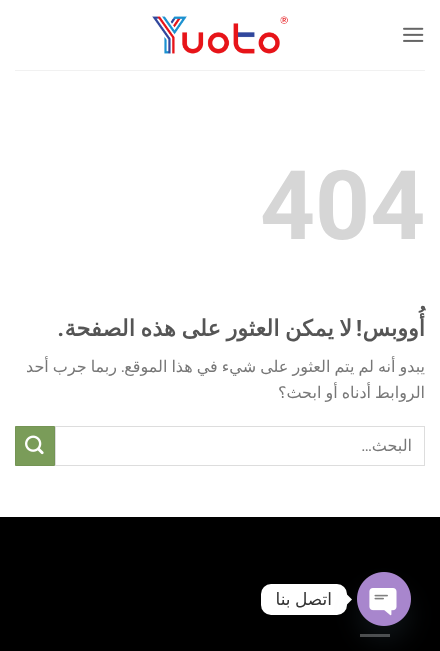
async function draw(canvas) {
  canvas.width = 440
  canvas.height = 651
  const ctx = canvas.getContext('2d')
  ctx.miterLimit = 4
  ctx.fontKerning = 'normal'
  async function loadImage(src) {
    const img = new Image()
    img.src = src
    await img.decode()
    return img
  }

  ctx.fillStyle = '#fff'
  ctx.fillRect(0, 0, 440, 651)
  ctx.drawImage(await loadImage('image0.png'), 403, 27, 21, 15)
  ctx.drawImage(await loadImage('image1.png'), 152, 16, 136, 38)
  ctx.fillStyle = '#f1f1f1'
  ctx.fillRect(15, 70, 410, 1)
  ctx.font = 'bold 96px Roboto'
  ctx.fillStyle = '#d6d6d6'
  ctx.fillText('404', 260, 239)
  ctx.direction = 'rtl'
  ctx.font = 'bold 22.4px DejaVu Sans'
  ctx.fillStyle = '#555'
  ctx.fillText('أُووبس', 425, 336)
  ctx.font = 'bold 22.4px Roboto'
  ctx.fillText('!', 362, 336)
  ctx.wordSpacing = '-1.5px'
  ctx.font = 'bold 22.4px DejaVu Sans'
  ctx.fillText('لا يمكن العثور على هذه الصفحة', 352, 336)
  ctx.wordSpacing = '0px'
  ctx.font = 'bold 22.4px Roboto'
  ctx.fillText('.', 64, 336)
  ctx.wordSpacing = '-1px'
  ctx.font = '16px DejaVu Sans'
  ctx.fillStyle = '#777'
  ctx.fillText('يبدو أنه لم يتم العثور على شيء في هذا الموقع', 425, 372)
  ctx.wordSpacing = '0px'
  ctx.font = '16px Roboto'
  ctx.fillText('.', 125, 372)
  ctx.wordSpacing = '-1px'
  ctx.font = '16px DejaVu Sans'
  ctx.fillText('ربما جرب أحد', 117, 372)
  ctx.fillText('الروابط أدناه أو ابحث؟', 425, 398)
  ctx.strokeStyle = '#ddd'
  ctx.strokeRect(55.5, 426.5, 369, 39)
  ctx.wordSpacing = '0px'
  ctx.fillText('البحث', 412, 451)
  ctx.font = '16px Roboto'
  ctx.fillText('…', 372, 451)
  ctx.fillStyle = '#7a9c59'
  ctx.beginPath()
  ctx.rect(15.5, 426.5, 39, 39)
  ctx.fill()
  ctx.strokeStyle = '#749455'
  ctx.stroke()
  ctx.drawImage(await loadImage('image2.png'), 25, 435, 19, 20)
  ctx.fillStyle = '#000'
  ctx.fillRect(0, 517, 440, 134)
  ctx.fillStyle = '#4d4d4d'
  ctx.fillRect(360, 634, 30, 3)
  ctx.fillStyle = '#fff'
  ctx.beginPath()
  ctx.roundRect(261, 584, 86, 31, 10)
  ctx.fill()
  ctx.beginPath()
  ctx.moveTo(347, 604.5)
  ctx.lineTo(347, 594.5)
  ctx.lineTo(352, 599.5)
  ctx.closePath()
  ctx.fill()
  ctx.fillStyle = '#49687e29'
  ctx.filter = 'blur(12px)'
  ctx.beginPath()
  ctx.roundRect(357, 588, 54, 54, 27)
  ctx.fill()
  ctx.filter = 'none'
  ctx.drawImage(await loadImage('image3.png'), 357, 572, 54, 54)
  ctx.wordSpacing = '-1px'
  ctx.font = '17px DejaVu Sans'
  ctx.fillStyle = '#333'
  ctx.fillText('اتصل بنا', 332, 605)
}

draw(document.querySelector('canvas'))
